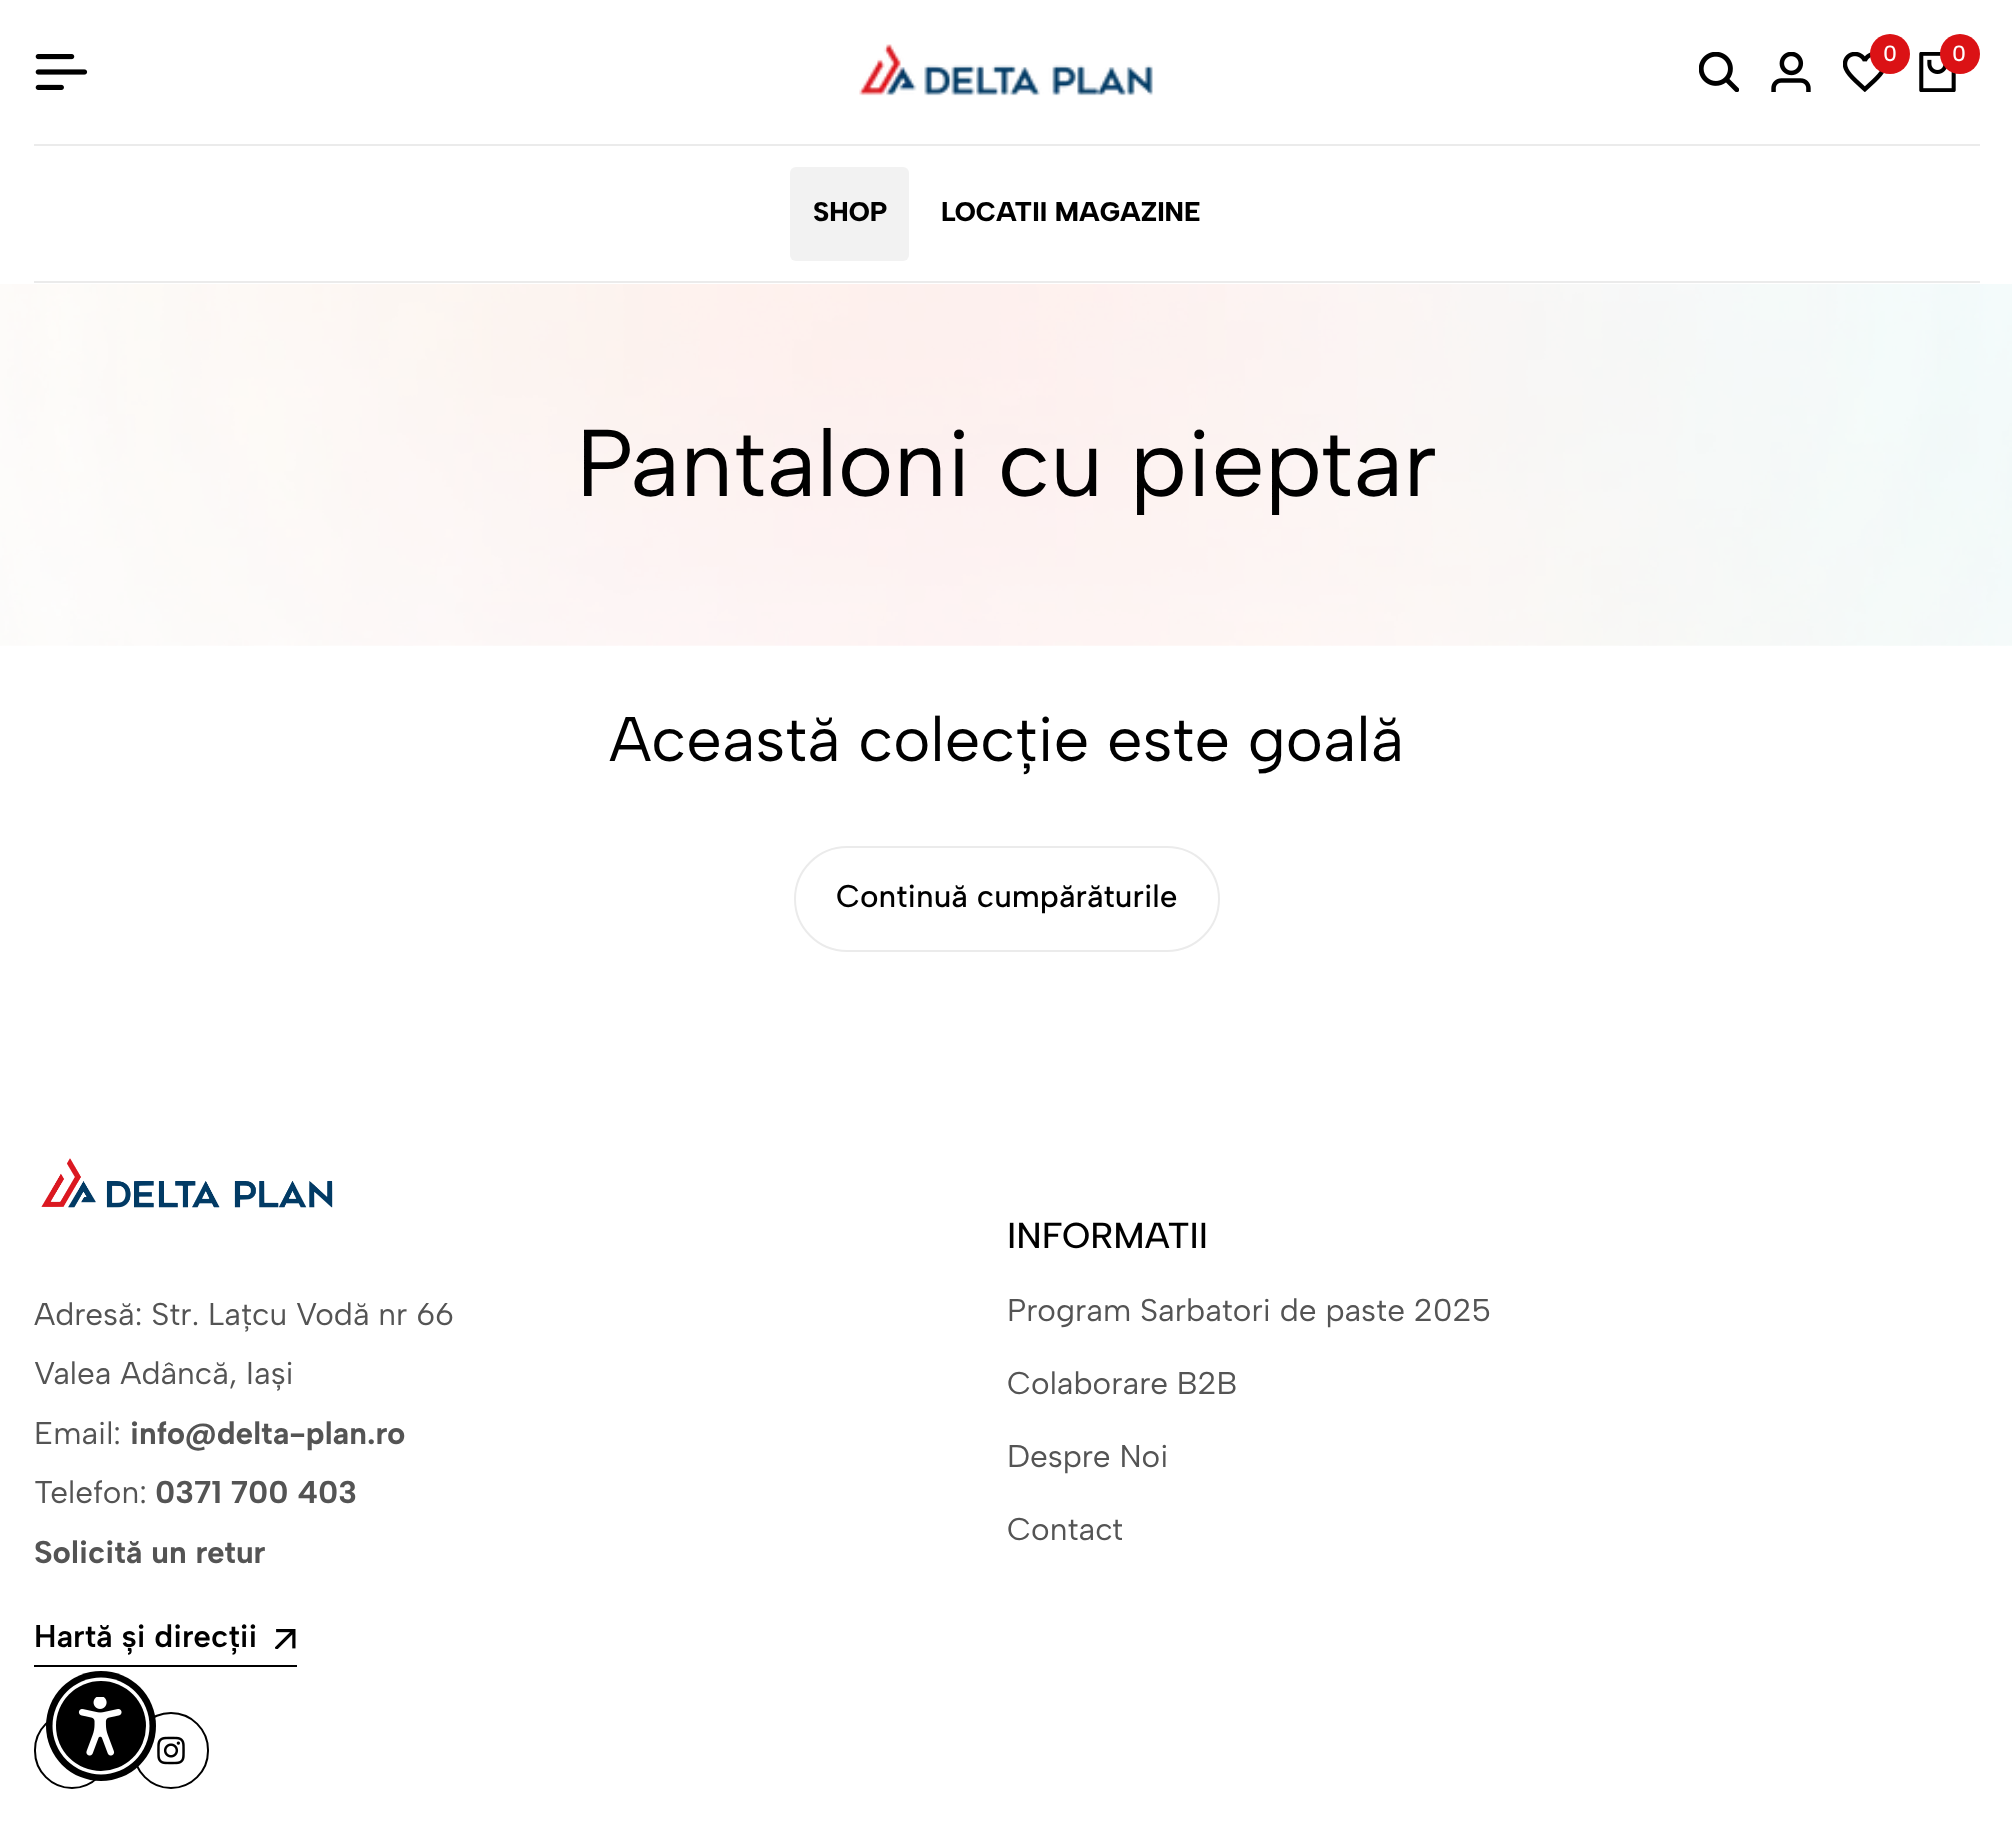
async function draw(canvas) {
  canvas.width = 2012
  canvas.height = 1826
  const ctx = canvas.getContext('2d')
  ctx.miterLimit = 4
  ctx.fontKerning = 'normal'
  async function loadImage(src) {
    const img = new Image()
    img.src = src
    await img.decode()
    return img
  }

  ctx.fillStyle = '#fff'
  ctx.fillRect(0, 0, 2012, 1826)
  ctx.drawImage(await loadImage('image0.png'), 35, 54, 53, 36)
  ctx.drawImage(await loadImage('image1.png'), 859, 44, 294, 52)
  ctx.drawImage(await loadImage('image2.png'), 1699, 52, 40, 40)
  ctx.drawImage(await loadImage('image3.png'), 1771, 52, 40, 40)
  ctx.drawImage(await loadImage('image4.png'), 1843, 52, 41, 40)
  ctx.fillStyle = '#db1215'
  ctx.beginPath()
  ctx.arc(1890, 54, 20, 0, 2 * Math.PI)
  ctx.fill()
  ctx.font = '500 22px Albert Sans'
  ctx.fillStyle = '#fff'
  ctx.fillText('0', 1883, 61)
  ctx.drawImage(await loadImage('image5.png'), 1919, 52, 37, 40)
  ctx.fillStyle = '#db1215'
  ctx.beginPath()
  ctx.arc(1960, 54, 20, 0, 2 * Math.PI)
  ctx.fill()
  ctx.fillStyle = '#fff'
  ctx.fillText('0', 1952, 61)
  ctx.fillStyle = '#ebebeb'
  ctx.fillRect(34, 144, 1946, 2)
  ctx.fillRect(34, 281, 1946, 2)
  ctx.fillStyle = '#f2f2f2'
  ctx.beginPath()
  ctx.roundRect(790, 167, 119, 94, 6)
  ctx.fill()
  ctx.font = '800 27px Albert Sans'
  ctx.fillStyle = '#000'
  ctx.fillText('SHOP', 813, 221)
  ctx.fillText('LOCATII MAGAZINE', 941, 221)
  ctx.drawImage(await loadImage('image6.png'), 0, 284, 2012, 362)
  ctx.font = '94.5px Albert Sans'
  ctx.fillText('Pantaloni cu pieptar', 576, 496)
  ctx.font = '63px Albert Sans'
  ctx.fillText('Această colecție este goală', 609, 761)
  ctx.beginPath()
  ctx.roundRect(795, 847, 424, 104, 52)
  ctx.strokeStyle = '#ebebeb'
  ctx.lineWidth = 2
  ctx.stroke()
  ctx.font = '500 31.5px Albert Sans'
  ctx.fillText('Continuă cumpărăturile', 836, 907)
  ctx.drawImage(await loadImage('image7.png'), 41, 1158, 292, 50)
  ctx.font = '31.5px Albert Sans'
  ctx.fillStyle = '#545454'
  ctx.fillText('Adresă: Str. Lațcu Vodă nr 66', 34, 1325)
  ctx.fillText('Valea Adâncă, Iași', 34, 1384)
  ctx.fillText('Email:', 34, 1444)
  ctx.font = 'bold 31.5px Albert Sans'
  ctx.fillText('info@delta-plan.ro', 130, 1444)
  ctx.font = '31.5px Albert Sans'
  ctx.fillText('Telefon:', 34, 1503)
  ctx.font = 'bold 31.5px Albert Sans'
  ctx.fillText('0371 700 403', 155, 1503)
  ctx.fillText('Solicită un retur', 34, 1563)
  ctx.font = '600 31.5px Albert Sans'
  ctx.fillStyle = '#000'
  ctx.fillText('Hartă și direcții', 34, 1647)
  ctx.drawImage(await loadImage('image8.png'), 275, 1629, 21, 20)
  ctx.fillRect(34, 1665, 263, 2)
  ctx.beginPath()
  ctx.roundRect(35, 1713, 74, 75, 37)
  ctx.strokeStyle = '#000'
  ctx.stroke()
  ctx.beginPath()
  ctx.roundRect(134, 1713, 74, 75, 37)
  ctx.stroke()
  ctx.drawImage(await loadImage('image9.png'), 157, 1736, 28, 29)
  ctx.font = '500 36px Albert Sans'
  ctx.fillText('INFORMATII', 1007, 1248)
  ctx.font = '31.5px Albert Sans'
  ctx.fillStyle = '#545454'
  ctx.fillText('Program Sarbatori de paste 2025', 1007, 1321)
  ctx.fillText('Colaborare B2B', 1007, 1394)
  ctx.fillText('Despre Noi', 1007, 1467)
  ctx.fillText('Contact', 1007, 1540)
  ctx.fillStyle = '#000'
  ctx.beginPath()
  ctx.arc(101, 1726, 55, 0, 2 * Math.PI)
  ctx.fill()
  ctx.fillStyle = '#fff'
  ctx.beginPath()
  ctx.arc(101, 1726, 48.5, 0, 2 * Math.PI)
  ctx.fill()
  ctx.fillStyle = '#000'
  ctx.beginPath()
  ctx.arc(101, 1726, 45, 0, 2 * Math.PI)
  ctx.fill()
  ctx.drawImage(await loadImage('image10.png'), 78, 1697, 44, 59)
}

draw(document.querySelector('canvas'))
